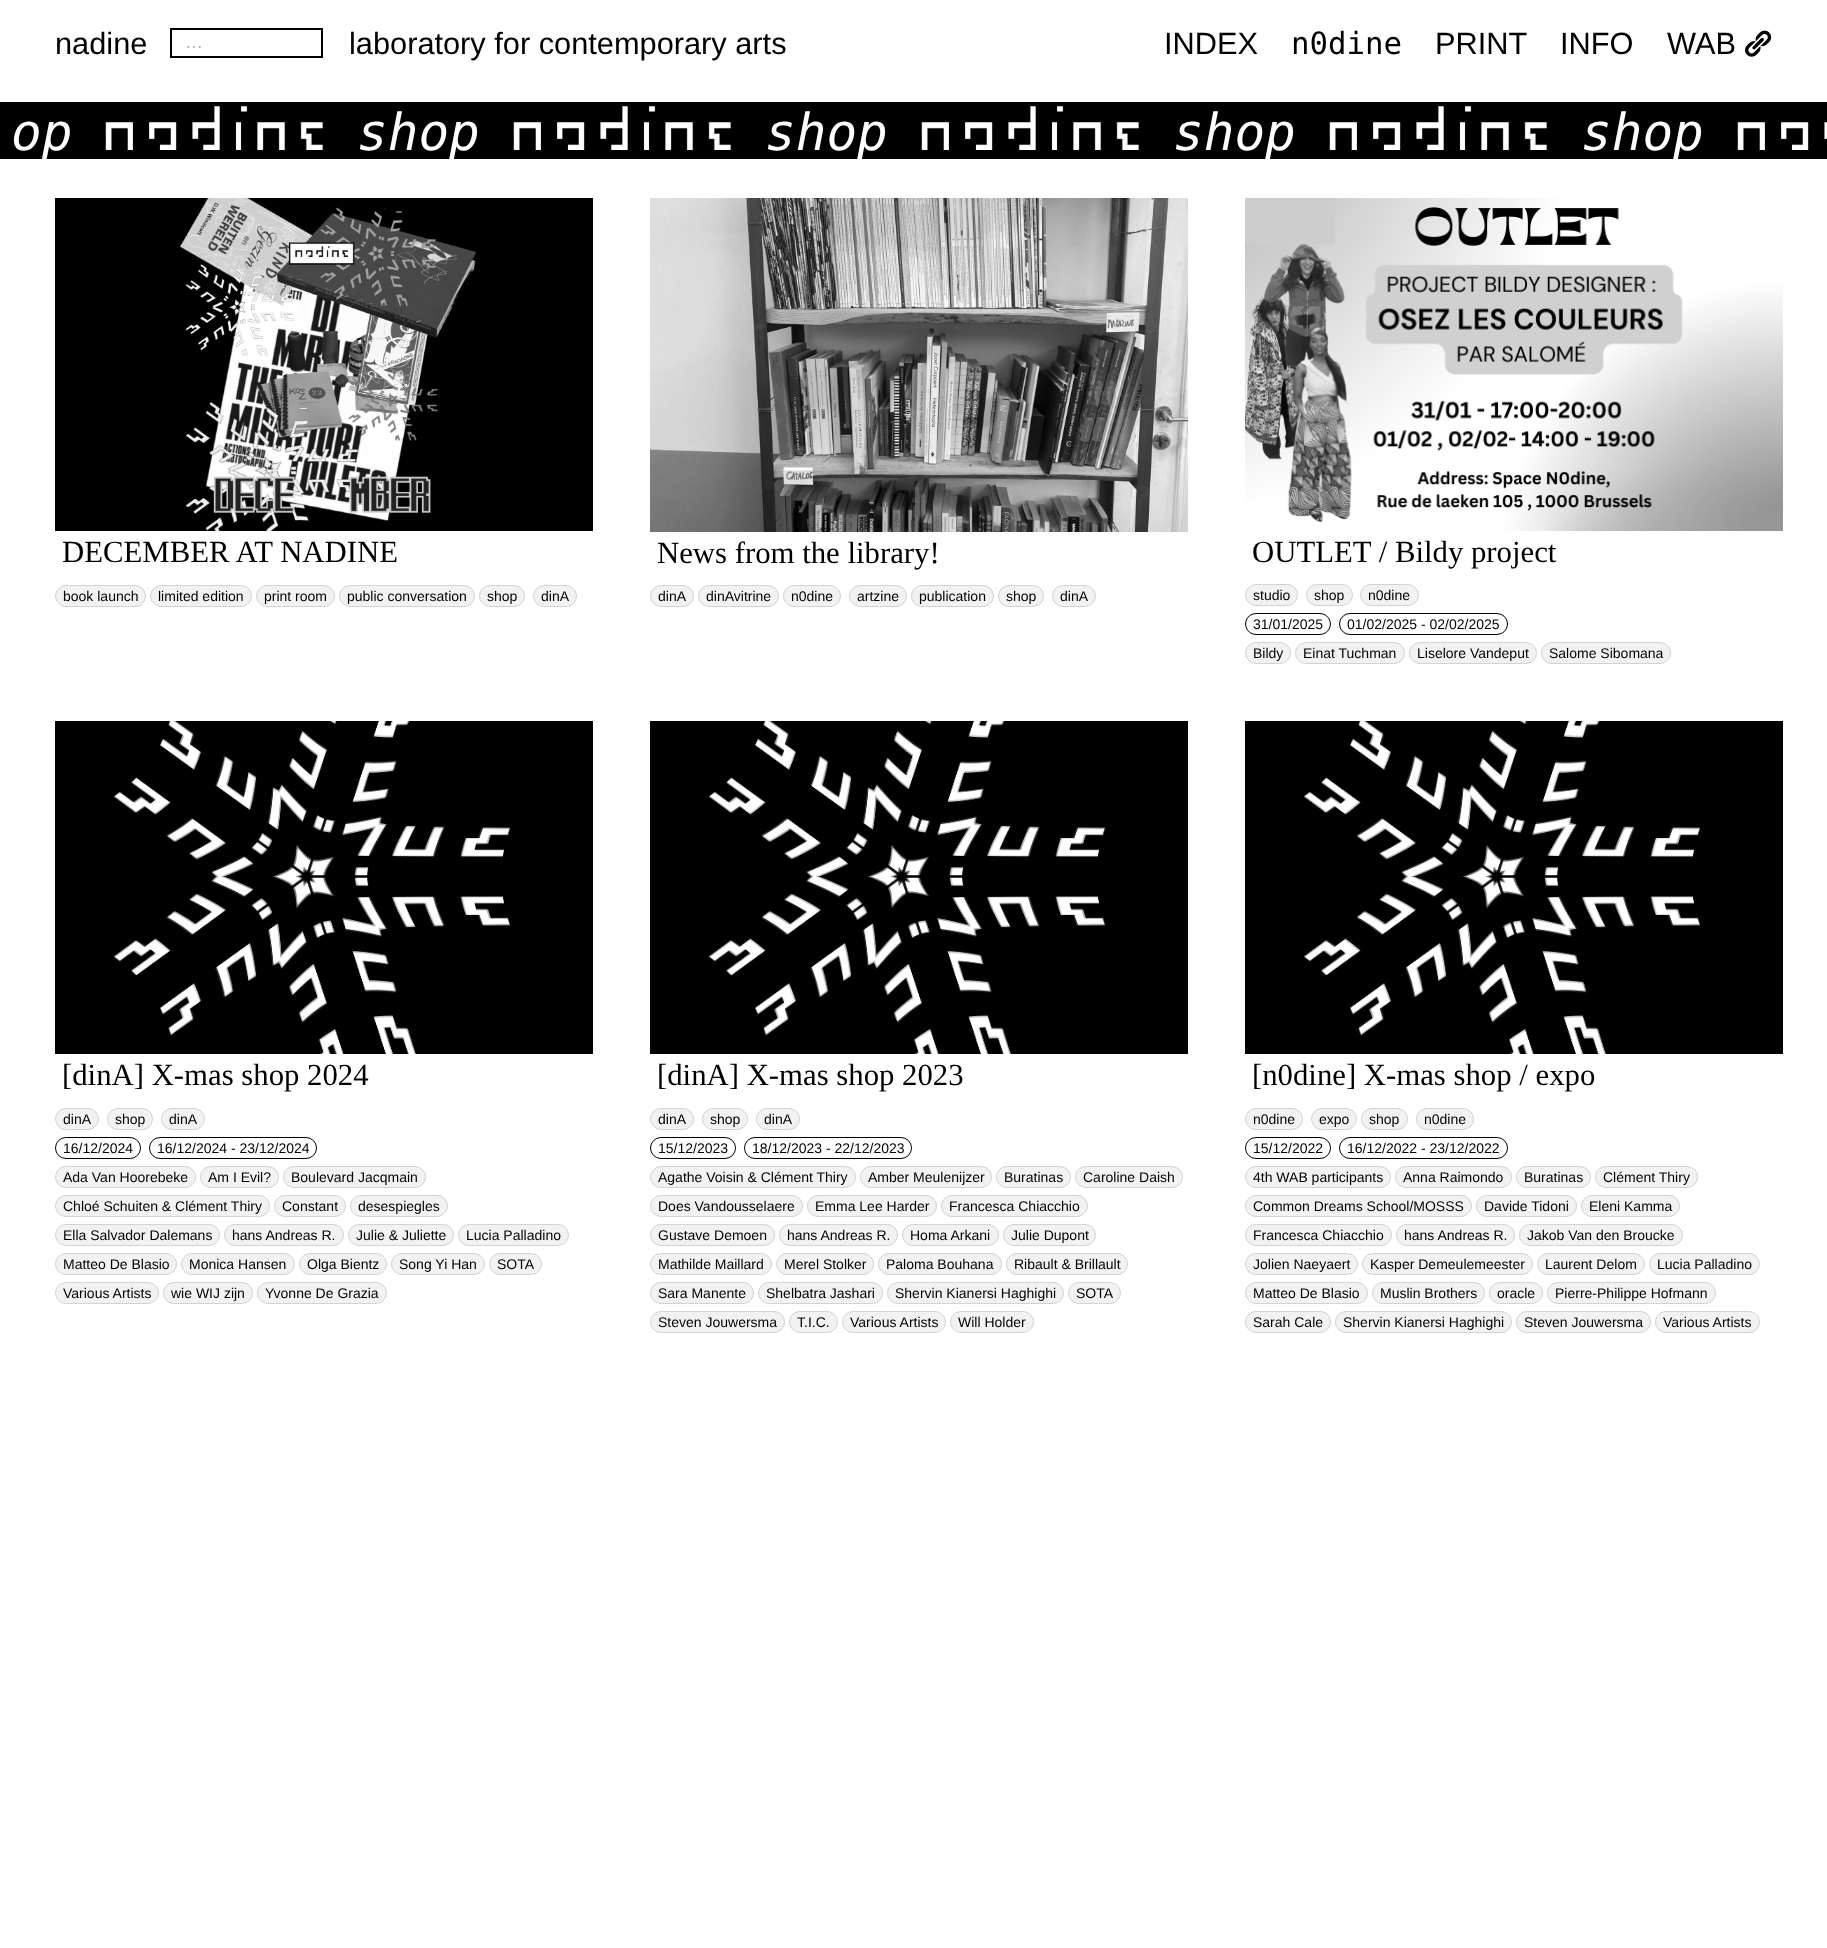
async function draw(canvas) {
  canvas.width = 1827
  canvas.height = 1948
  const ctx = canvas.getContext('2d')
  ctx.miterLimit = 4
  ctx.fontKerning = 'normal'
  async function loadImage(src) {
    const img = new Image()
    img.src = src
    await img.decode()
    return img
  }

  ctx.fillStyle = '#fff'
  ctx.fillRect(0, 0, 1827, 1948)
  ctx.font = '30.75px Liberation Sans'
  ctx.fillStyle = '#000'
  ctx.fillText('nadine', 55, 54)
  ctx.strokeStyle = '#000'
  ctx.lineWidth = 2
  ctx.strokeRect(171, 29, 151, 28)
  ctx.font = '18px Liberation Sans'
  ctx.fillStyle = '#afb0ae'
  ctx.fillText('…', 185, 48)
  ctx.font = '30.75px Liberation Sans'
  ctx.fillStyle = '#000'
  ctx.fillText('laboratory for contemporary arts', 349, 54)
  ctx.fillText('INDEX', 1164, 54)
  ctx.font = '30.75px DejaVu Sans Mono'
  ctx.fillText('n0dine', 1291, 54)
  ctx.font = '30.75px Liberation Sans'
  ctx.fillText('PRINT', 1435, 54)
  ctx.fillText('INFO', 1560, 54)
  ctx.fillText('WAB', 1667, 54)
  ctx.drawImage(await loadImage('image0.png'), 1745, 30, 27, 27)
  ctx.fillRect(0, 102, 1827, 57)
  ctx.save()
  ctx.beginPath()
  ctx.rect(0, 102, 1827, 57)
  ctx.clip()
  ctx.font = 'italic 51px DejaVu Sans Mono'
  ctx.fillStyle = '#fff'
  ctx.fillText('op', 11, 150)
  ctx.restore()
  ctx.drawImage(await loadImage('image1.png'), 105, 106, 218, 44)
  ctx.save()
  ctx.beginPath()
  ctx.rect(0, 102, 1827, 57)
  ctx.clip()
  ctx.font = 'italic 51px DejaVu Sans Mono'
  ctx.fillStyle = '#fff'
  ctx.fillText('shop', 357, 150)
  ctx.restore()
  ctx.drawImage(await loadImage('image1.png'), 513, 106, 218, 44)
  ctx.save()
  ctx.beginPath()
  ctx.rect(0, 102, 1827, 57)
  ctx.clip()
  ctx.font = 'italic 51px DejaVu Sans Mono'
  ctx.fillStyle = '#fff'
  ctx.fillText('shop', 765, 150)
  ctx.restore()
  ctx.drawImage(await loadImage('image1.png'), 921, 106, 218, 44)
  ctx.save()
  ctx.beginPath()
  ctx.rect(0, 102, 1827, 57)
  ctx.clip()
  ctx.font = 'italic 51px DejaVu Sans Mono'
  ctx.fillStyle = '#fff'
  ctx.fillText('shop', 1173, 150)
  ctx.restore()
  ctx.drawImage(await loadImage('image1.png'), 1329, 106, 218, 44)
  ctx.save()
  ctx.beginPath()
  ctx.rect(0, 102, 1827, 57)
  ctx.clip()
  ctx.font = 'italic 51px DejaVu Sans Mono'
  ctx.fillStyle = '#fff'
  ctx.fillText('shop', 1581, 150)
  ctx.restore()
  ctx.drawImage(await loadImage('image2.png'), 1737, 122, 90, 28)
  ctx.drawImage(await loadImage('image3.png'), 55, 198, 538, 333)
  ctx.font = '30.75px Liberation Serif'
  ctx.fillText('DECEMBER AT NADINE', 62, 562)
  ctx.fillStyle = '#f2f2f2'
  ctx.beginPath()
  ctx.roundRect(55.5, 585.5, 90, 21, 10.5)
  ctx.fill()
  ctx.strokeStyle = '#d3d3d3'
  ctx.lineWidth = 1
  ctx.stroke()
  ctx.font = '14px Liberation Sans'
  ctx.fillStyle = '#000'
  ctx.fillText('book launch', 63, 601)
  ctx.fillStyle = '#f2f2f2'
  ctx.beginPath()
  ctx.roundRect(150.5, 585.5, 101, 21, 10.5)
  ctx.fill()
  ctx.stroke()
  ctx.fillStyle = '#000'
  ctx.fillText('limited edition', 158, 601)
  ctx.fillStyle = '#f2f2f2'
  ctx.beginPath()
  ctx.roundRect(256.5, 585.5, 78, 21, 10.5)
  ctx.fill()
  ctx.stroke()
  ctx.fillStyle = '#000'
  ctx.fillText('print room', 264, 601)
  ctx.fillStyle = '#f2f2f2'
  ctx.beginPath()
  ctx.roundRect(339.5, 585.5, 135, 21, 10.5)
  ctx.fill()
  ctx.stroke()
  ctx.fillStyle = '#000'
  ctx.fillText('public conversation', 347, 601)
  ctx.fillStyle = '#f2f2f2'
  ctx.beginPath()
  ctx.roundRect(479.5, 585.5, 45, 21, 10.5)
  ctx.fill()
  ctx.stroke()
  ctx.fillStyle = '#000'
  ctx.fillText('shop', 487, 601)
  ctx.fillStyle = '#f2f2f2'
  ctx.beginPath()
  ctx.roundRect(533.5, 585.5, 43, 21, 10.5)
  ctx.fill()
  ctx.stroke()
  ctx.fillStyle = '#000'
  ctx.fillText('dinA', 541, 601)
  ctx.drawImage(await loadImage('image4.png'), 650, 198, 538, 334)
  ctx.font = '30.75px Liberation Serif'
  ctx.fillText('News from the library!', 657, 563)
  ctx.fillStyle = '#f2f2f2'
  ctx.beginPath()
  ctx.roundRect(650.5, 585.5, 43, 21, 10.5)
  ctx.fill()
  ctx.stroke()
  ctx.font = '14px Liberation Sans'
  ctx.fillStyle = '#000'
  ctx.fillText('dinA', 658, 601)
  ctx.fillStyle = '#f2f2f2'
  ctx.beginPath()
  ctx.roundRect(698.5, 585.5, 80, 21, 10.5)
  ctx.fill()
  ctx.stroke()
  ctx.fillStyle = '#000'
  ctx.fillText('dinAvitrine', 706, 601)
  ctx.fillStyle = '#f2f2f2'
  ctx.beginPath()
  ctx.roundRect(783.5, 585.5, 57, 21, 10.5)
  ctx.fill()
  ctx.stroke()
  ctx.fillStyle = '#000'
  ctx.fillText('n0dine', 791, 601)
  ctx.fillStyle = '#f2f2f2'
  ctx.beginPath()
  ctx.roundRect(849.5, 585.5, 57, 21, 10.5)
  ctx.fill()
  ctx.stroke()
  ctx.fillStyle = '#000'
  ctx.fillText('artzine', 857, 601)
  ctx.fillStyle = '#f2f2f2'
  ctx.beginPath()
  ctx.roundRect(911.5, 585.5, 82, 21, 10.5)
  ctx.fill()
  ctx.stroke()
  ctx.fillStyle = '#000'
  ctx.fillText('publication', 919, 601)
  ctx.fillStyle = '#f2f2f2'
  ctx.beginPath()
  ctx.roundRect(998.5, 585.5, 45, 21, 10.5)
  ctx.fill()
  ctx.stroke()
  ctx.fillStyle = '#000'
  ctx.fillText('shop', 1006, 601)
  ctx.fillStyle = '#f2f2f2'
  ctx.beginPath()
  ctx.roundRect(1052.5, 585.5, 43, 21, 10.5)
  ctx.fill()
  ctx.stroke()
  ctx.fillStyle = '#000'
  ctx.fillText('dinA', 1060, 601)
  ctx.drawImage(await loadImage('image5.png'), 1245, 198, 538, 333)
  ctx.font = '30.75px Liberation Serif'
  ctx.fillText('OUTLET / Bildy project', 1252, 562)
  ctx.fillStyle = '#f2f2f2'
  ctx.beginPath()
  ctx.roundRect(1245.5, 584.5, 52, 21, 10.5)
  ctx.fill()
  ctx.stroke()
  ctx.font = '14px Liberation Sans'
  ctx.fillStyle = '#000'
  ctx.fillText('studio', 1253, 600)
  ctx.fillStyle = '#f2f2f2'
  ctx.beginPath()
  ctx.roundRect(1306.5, 584.5, 46, 21, 10.5)
  ctx.fill()
  ctx.stroke()
  ctx.fillStyle = '#000'
  ctx.fillText('shop', 1314, 600)
  ctx.fillStyle = '#f2f2f2'
  ctx.beginPath()
  ctx.roundRect(1360.5, 584.5, 58, 21, 10.5)
  ctx.fill()
  ctx.stroke()
  ctx.fillStyle = '#000'
  ctx.fillText('n0dine', 1368, 600)
  ctx.beginPath()
  ctx.roundRect(1245.5, 613.5, 85, 21, 10.5)
  ctx.strokeStyle = '#000'
  ctx.stroke()
  ctx.fillText('31/01/2025', 1253, 629)
  ctx.beginPath()
  ctx.roundRect(1339.5, 613.5, 168, 21, 10.5)
  ctx.stroke()
  ctx.fillText('01/02/2025 - 02/02/2025', 1347, 629)
  ctx.fillStyle = '#f2f2f2'
  ctx.beginPath()
  ctx.roundRect(1245.5, 642.5, 45, 21, 10.5)
  ctx.fill()
  ctx.strokeStyle = '#d3d3d3'
  ctx.stroke()
  ctx.fillStyle = '#000'
  ctx.fillText('Bildy', 1253, 658)
  ctx.fillStyle = '#f2f2f2'
  ctx.beginPath()
  ctx.roundRect(1295.5, 642.5, 109, 21, 10.5)
  ctx.fill()
  ctx.stroke()
  ctx.fillStyle = '#000'
  ctx.fillText('Einat Tuchman', 1303, 658)
  ctx.fillStyle = '#f2f2f2'
  ctx.beginPath()
  ctx.roundRect(1409.5, 642.5, 127, 21, 10.5)
  ctx.fill()
  ctx.stroke()
  ctx.fillStyle = '#000'
  ctx.fillText('Liselore Vandeput', 1417, 658)
  ctx.fillStyle = '#f2f2f2'
  ctx.beginPath()
  ctx.roundRect(1541.5, 642.5, 129, 21, 10.5)
  ctx.fill()
  ctx.stroke()
  ctx.fillStyle = '#000'
  ctx.fillText('Salome Sibomana', 1549, 658)
  ctx.drawImage(await loadImage('image6.png'), 55, 721, 538, 333)
  ctx.font = '30.75px Liberation Serif'
  ctx.fillText('[dinA] X-mas shop 2024', 62, 1085)
  ctx.fillStyle = '#f2f2f2'
  ctx.beginPath()
  ctx.roundRect(55.5, 1108.5, 43, 21, 10.5)
  ctx.fill()
  ctx.stroke()
  ctx.font = '14px Liberation Sans'
  ctx.fillStyle = '#000'
  ctx.fillText('dinA', 63, 1124)
  ctx.fillStyle = '#f2f2f2'
  ctx.beginPath()
  ctx.roundRect(107.5, 1108.5, 45, 21, 10.5)
  ctx.fill()
  ctx.stroke()
  ctx.fillStyle = '#000'
  ctx.fillText('shop', 115, 1124)
  ctx.fillStyle = '#f2f2f2'
  ctx.beginPath()
  ctx.roundRect(161.5, 1108.5, 43, 21, 10.5)
  ctx.fill()
  ctx.stroke()
  ctx.fillStyle = '#000'
  ctx.fillText('dinA', 169, 1124)
  ctx.beginPath()
  ctx.roundRect(55.5, 1137.5, 85, 21, 10.5)
  ctx.strokeStyle = '#000'
  ctx.stroke()
  ctx.fillText('16/12/2024', 63, 1153)
  ctx.beginPath()
  ctx.roundRect(149.5, 1137.5, 167, 21, 10.5)
  ctx.stroke()
  ctx.fillText('16/12/2024 - 23/12/2024', 157, 1153)
  ctx.fillStyle = '#f2f2f2'
  ctx.beginPath()
  ctx.roundRect(55.5, 1166.5, 140, 21, 10.5)
  ctx.fill()
  ctx.strokeStyle = '#d3d3d3'
  ctx.stroke()
  ctx.fillStyle = '#000'
  ctx.fillText('Ada Van Hoorebeke', 63, 1182)
  ctx.fillStyle = '#f2f2f2'
  ctx.beginPath()
  ctx.roundRect(200.5, 1166.5, 78, 21, 10.5)
  ctx.fill()
  ctx.stroke()
  ctx.fillStyle = '#000'
  ctx.fillText('Am I Evil?', 208, 1182)
  ctx.fillStyle = '#f2f2f2'
  ctx.beginPath()
  ctx.roundRect(283.5, 1166.5, 142, 21, 10.5)
  ctx.fill()
  ctx.stroke()
  ctx.fillStyle = '#000'
  ctx.fillText('Boulevard Jacqmain', 291, 1182)
  ctx.fillStyle = '#f2f2f2'
  ctx.beginPath()
  ctx.roundRect(55.5, 1195.5, 214, 21, 10.5)
  ctx.fill()
  ctx.stroke()
  ctx.fillStyle = '#000'
  ctx.fillText('Chloé Schuiten & Clément Thiry', 63, 1211)
  ctx.fillStyle = '#f2f2f2'
  ctx.beginPath()
  ctx.roundRect(274.5, 1195.5, 71, 21, 10.5)
  ctx.fill()
  ctx.stroke()
  ctx.fillStyle = '#000'
  ctx.fillText('Constant', 282, 1211)
  ctx.fillStyle = '#f2f2f2'
  ctx.beginPath()
  ctx.roundRect(350.5, 1195.5, 97, 21, 10.5)
  ctx.fill()
  ctx.stroke()
  ctx.fillStyle = '#000'
  ctx.fillText('desespiegles', 358, 1211)
  ctx.fillStyle = '#f2f2f2'
  ctx.beginPath()
  ctx.roundRect(55.5, 1224.5, 164, 21, 10.5)
  ctx.fill()
  ctx.stroke()
  ctx.fillStyle = '#000'
  ctx.fillText('Ella Salvador Dalemans', 63, 1240)
  ctx.fillStyle = '#f2f2f2'
  ctx.beginPath()
  ctx.roundRect(224.5, 1224.5, 119, 21, 10.5)
  ctx.fill()
  ctx.stroke()
  ctx.fillStyle = '#000'
  ctx.fillText('hans Andreas R.', 232, 1240)
  ctx.fillStyle = '#f2f2f2'
  ctx.beginPath()
  ctx.roundRect(348.5, 1224.5, 105, 21, 10.5)
  ctx.fill()
  ctx.stroke()
  ctx.fillStyle = '#000'
  ctx.fillText('Julie & Juliette', 356, 1240)
  ctx.fillStyle = '#f2f2f2'
  ctx.beginPath()
  ctx.roundRect(458.5, 1224.5, 110, 21, 10.5)
  ctx.fill()
  ctx.stroke()
  ctx.fillStyle = '#000'
  ctx.fillText('Lucia Palladino', 466, 1240)
  ctx.fillStyle = '#f2f2f2'
  ctx.beginPath()
  ctx.roundRect(55.5, 1253.5, 121, 21, 10.5)
  ctx.fill()
  ctx.stroke()
  ctx.fillStyle = '#000'
  ctx.fillText('Matteo De Blasio', 63, 1269)
  ctx.fillStyle = '#f2f2f2'
  ctx.beginPath()
  ctx.roundRect(181.5, 1253.5, 113, 21, 10.5)
  ctx.fill()
  ctx.stroke()
  ctx.fillStyle = '#000'
  ctx.fillText('Monica Hansen', 189, 1269)
  ctx.fillStyle = '#f2f2f2'
  ctx.beginPath()
  ctx.roundRect(299.5, 1253.5, 87, 21, 10.5)
  ctx.fill()
  ctx.stroke()
  ctx.fillStyle = '#000'
  ctx.fillText('Olga Bientz', 307, 1269)
  ctx.fillStyle = '#f2f2f2'
  ctx.beginPath()
  ctx.roundRect(391.5, 1253.5, 93, 21, 10.5)
  ctx.fill()
  ctx.stroke()
  ctx.fillStyle = '#000'
  ctx.fillText('Song Yi Han', 399, 1269)
  ctx.fillStyle = '#f2f2f2'
  ctx.beginPath()
  ctx.roundRect(489.5, 1253.5, 52, 21, 10.5)
  ctx.fill()
  ctx.stroke()
  ctx.fillStyle = '#000'
  ctx.fillText('SOTA', 497, 1269)
  ctx.fillStyle = '#f2f2f2'
  ctx.beginPath()
  ctx.roundRect(55.5, 1282.5, 103, 21, 10.5)
  ctx.fill()
  ctx.stroke()
  ctx.fillStyle = '#000'
  ctx.fillText('Various Artists', 63, 1298)
  ctx.fillStyle = '#f2f2f2'
  ctx.beginPath()
  ctx.roundRect(163.5, 1282.5, 89, 21, 10.5)
  ctx.fill()
  ctx.stroke()
  ctx.fillStyle = '#000'
  ctx.fillText('wie WIJ zijn', 171, 1298)
  ctx.fillStyle = '#f2f2f2'
  ctx.beginPath()
  ctx.roundRect(257.5, 1282.5, 129, 21, 10.5)
  ctx.fill()
  ctx.stroke()
  ctx.fillStyle = '#000'
  ctx.fillText('Yvonne De Grazia', 265, 1298)
  ctx.drawImage(await loadImage('image7.png'), 650, 721, 538, 333)
  ctx.font = '30.75px Liberation Serif'
  ctx.fillText('[dinA] X-mas shop 2023', 657, 1085)
  ctx.fillStyle = '#f2f2f2'
  ctx.beginPath()
  ctx.roundRect(650.5, 1108.5, 43, 21, 10.5)
  ctx.fill()
  ctx.stroke()
  ctx.font = '14px Liberation Sans'
  ctx.fillStyle = '#000'
  ctx.fillText('dinA', 658, 1124)
  ctx.fillStyle = '#f2f2f2'
  ctx.beginPath()
  ctx.roundRect(702.5, 1108.5, 45, 21, 10.5)
  ctx.fill()
  ctx.stroke()
  ctx.fillStyle = '#000'
  ctx.fillText('shop', 710, 1124)
  ctx.fillStyle = '#f2f2f2'
  ctx.beginPath()
  ctx.roundRect(756.5, 1108.5, 43, 21, 10.5)
  ctx.fill()
  ctx.stroke()
  ctx.fillStyle = '#000'
  ctx.fillText('dinA', 764, 1124)
  ctx.beginPath()
  ctx.roundRect(650.5, 1137.5, 85, 21, 10.5)
  ctx.strokeStyle = '#000'
  ctx.stroke()
  ctx.fillText('15/12/2023', 658, 1153)
  ctx.beginPath()
  ctx.roundRect(744.5, 1137.5, 167, 21, 10.5)
  ctx.stroke()
  ctx.fillText('18/12/2023 - 22/12/2023', 752, 1153)
  ctx.fillStyle = '#f2f2f2'
  ctx.beginPath()
  ctx.roundRect(650.5, 1166.5, 205, 21, 10.5)
  ctx.fill()
  ctx.strokeStyle = '#d3d3d3'
  ctx.stroke()
  ctx.fillStyle = '#000'
  ctx.fillText('Agathe Voisin & Clément Thiry', 658, 1182)
  ctx.fillStyle = '#f2f2f2'
  ctx.beginPath()
  ctx.roundRect(860.5, 1166.5, 131, 21, 10.5)
  ctx.fill()
  ctx.stroke()
  ctx.fillStyle = '#000'
  ctx.fillText('Amber Meulenijzer', 868, 1182)
  ctx.fillStyle = '#f2f2f2'
  ctx.beginPath()
  ctx.roundRect(996.5, 1166.5, 74, 21, 10.5)
  ctx.fill()
  ctx.stroke()
  ctx.fillStyle = '#000'
  ctx.fillText('Buratinas', 1004, 1182)
  ctx.fillStyle = '#f2f2f2'
  ctx.beginPath()
  ctx.roundRect(1075.5, 1166.5, 107, 21, 10.5)
  ctx.fill()
  ctx.stroke()
  ctx.fillStyle = '#000'
  ctx.fillText('Caroline Daish', 1083, 1182)
  ctx.fillStyle = '#f2f2f2'
  ctx.beginPath()
  ctx.roundRect(650.5, 1195.5, 152, 21, 10.5)
  ctx.fill()
  ctx.stroke()
  ctx.fillStyle = '#000'
  ctx.fillText('Does Vandousselaere', 658, 1211)
  ctx.fillStyle = '#f2f2f2'
  ctx.beginPath()
  ctx.roundRect(807.5, 1195.5, 129, 21, 10.5)
  ctx.fill()
  ctx.stroke()
  ctx.fillStyle = '#000'
  ctx.fillText('Emma Lee Harder', 815, 1211)
  ctx.fillStyle = '#f2f2f2'
  ctx.beginPath()
  ctx.roundRect(941.5, 1195.5, 146, 21, 10.5)
  ctx.fill()
  ctx.stroke()
  ctx.fillStyle = '#000'
  ctx.fillText('Francesca Chiacchio', 949, 1211)
  ctx.fillStyle = '#f2f2f2'
  ctx.beginPath()
  ctx.roundRect(650.5, 1224.5, 124, 21, 10.5)
  ctx.fill()
  ctx.stroke()
  ctx.fillStyle = '#000'
  ctx.fillText('Gustave Demoen', 658, 1240)
  ctx.fillStyle = '#f2f2f2'
  ctx.beginPath()
  ctx.roundRect(779.5, 1224.5, 118, 21, 10.5)
  ctx.fill()
  ctx.stroke()
  ctx.fillStyle = '#000'
  ctx.fillText('hans Andreas R.', 787, 1240)
  ctx.fillStyle = '#f2f2f2'
  ctx.beginPath()
  ctx.roundRect(902.5, 1224.5, 96, 21, 10.5)
  ctx.fill()
  ctx.stroke()
  ctx.fillStyle = '#000'
  ctx.fillText('Homa Arkani', 910, 1240)
  ctx.fillStyle = '#f2f2f2'
  ctx.beginPath()
  ctx.roundRect(1003.5, 1224.5, 92, 21, 10.5)
  ctx.fill()
  ctx.stroke()
  ctx.fillStyle = '#000'
  ctx.fillText('Julie Dupont', 1011, 1240)
  ctx.fillStyle = '#f2f2f2'
  ctx.beginPath()
  ctx.roundRect(650.5, 1253.5, 121, 21, 10.5)
  ctx.fill()
  ctx.stroke()
  ctx.fillStyle = '#000'
  ctx.fillText('Mathilde Maillard', 658, 1269)
  ctx.fillStyle = '#f2f2f2'
  ctx.beginPath()
  ctx.roundRect(776.5, 1253.5, 97, 21, 10.5)
  ctx.fill()
  ctx.stroke()
  ctx.fillStyle = '#000'
  ctx.fillText('Merel Stolker', 784, 1269)
  ctx.fillStyle = '#f2f2f2'
  ctx.beginPath()
  ctx.roundRect(878.5, 1253.5, 123, 21, 10.5)
  ctx.fill()
  ctx.stroke()
  ctx.fillStyle = '#000'
  ctx.fillText('Paloma Bouhana', 886, 1269)
  ctx.fillStyle = '#f2f2f2'
  ctx.beginPath()
  ctx.roundRect(1006.5, 1253.5, 121, 21, 10.5)
  ctx.fill()
  ctx.stroke()
  ctx.fillStyle = '#000'
  ctx.fillText('Ribault & Brillault', 1014, 1269)
  ctx.fillStyle = '#f2f2f2'
  ctx.beginPath()
  ctx.roundRect(650.5, 1282.5, 103, 21, 10.5)
  ctx.fill()
  ctx.stroke()
  ctx.fillStyle = '#000'
  ctx.fillText('Sara Manente', 658, 1298)
  ctx.fillStyle = '#f2f2f2'
  ctx.beginPath()
  ctx.roundRect(758.5, 1282.5, 124, 21, 10.5)
  ctx.fill()
  ctx.stroke()
  ctx.fillStyle = '#000'
  ctx.fillText('Shelbatra Jashari', 766, 1298)
  ctx.fillStyle = '#f2f2f2'
  ctx.beginPath()
  ctx.roundRect(887.5, 1282.5, 176, 21, 10.5)
  ctx.fill()
  ctx.stroke()
  ctx.fillStyle = '#000'
  ctx.fillText('Shervin Kianersi Haghighi', 895, 1298)
  ctx.fillStyle = '#f2f2f2'
  ctx.beginPath()
  ctx.roundRect(1068.5, 1282.5, 52, 21, 10.5)
  ctx.fill()
  ctx.stroke()
  ctx.fillStyle = '#000'
  ctx.fillText('SOTA', 1076, 1298)
  ctx.fillStyle = '#f2f2f2'
  ctx.beginPath()
  ctx.roundRect(650.5, 1311.5, 134, 21, 10.5)
  ctx.fill()
  ctx.stroke()
  ctx.fillStyle = '#000'
  ctx.fillText('Steven Jouwersma', 658, 1327)
  ctx.fillStyle = '#f2f2f2'
  ctx.beginPath()
  ctx.roundRect(789.5, 1311.5, 48, 21, 10.5)
  ctx.fill()
  ctx.stroke()
  ctx.fillStyle = '#000'
  ctx.fillText('T.I.C.', 797, 1327)
  ctx.fillStyle = '#f2f2f2'
  ctx.beginPath()
  ctx.roundRect(842.5, 1311.5, 103, 21, 10.5)
  ctx.fill()
  ctx.stroke()
  ctx.fillStyle = '#000'
  ctx.fillText('Various Artists', 850, 1327)
  ctx.fillStyle = '#f2f2f2'
  ctx.beginPath()
  ctx.roundRect(950.5, 1311.5, 83, 21, 10.5)
  ctx.fill()
  ctx.stroke()
  ctx.fillStyle = '#000'
  ctx.fillText('Will Holder', 958, 1327)
  ctx.drawImage(await loadImage('image6.png'), 1245, 721, 538, 333)
  ctx.font = '30.75px Liberation Serif'
  ctx.fillText('[n0dine] X-mas shop / expo', 1252, 1085)
  ctx.fillStyle = '#f2f2f2'
  ctx.beginPath()
  ctx.roundRect(1245.5, 1108.5, 57, 21, 10.5)
  ctx.fill()
  ctx.stroke()
  ctx.font = '14px Liberation Sans'
  ctx.fillStyle = '#000'
  ctx.fillText('n0dine', 1253, 1124)
  ctx.fillStyle = '#f2f2f2'
  ctx.beginPath()
  ctx.roundRect(1311.5, 1108.5, 45, 21, 10.5)
  ctx.fill()
  ctx.stroke()
  ctx.fillStyle = '#000'
  ctx.fillText('expo', 1319, 1124)
  ctx.fillStyle = '#f2f2f2'
  ctx.beginPath()
  ctx.roundRect(1361.5, 1108.5, 46, 21, 10.5)
  ctx.fill()
  ctx.stroke()
  ctx.fillStyle = '#000'
  ctx.fillText('shop', 1369, 1124)
  ctx.fillStyle = '#f2f2f2'
  ctx.beginPath()
  ctx.roundRect(1416.5, 1108.5, 57, 21, 10.5)
  ctx.fill()
  ctx.stroke()
  ctx.fillStyle = '#000'
  ctx.fillText('n0dine', 1424, 1124)
  ctx.beginPath()
  ctx.roundRect(1245.5, 1137.5, 85, 21, 10.5)
  ctx.strokeStyle = '#000'
  ctx.stroke()
  ctx.fillText('15/12/2022', 1253, 1153)
  ctx.beginPath()
  ctx.roundRect(1339.5, 1137.5, 168, 21, 10.5)
  ctx.stroke()
  ctx.fillText('16/12/2022 - 23/12/2022', 1347, 1153)
  ctx.fillStyle = '#f2f2f2'
  ctx.beginPath()
  ctx.roundRect(1245.5, 1166.5, 145, 21, 10.5)
  ctx.fill()
  ctx.strokeStyle = '#d3d3d3'
  ctx.stroke()
  ctx.fillStyle = '#000'
  ctx.fillText('4th WAB participants', 1253, 1182)
  ctx.fillStyle = '#f2f2f2'
  ctx.beginPath()
  ctx.roundRect(1395.5, 1166.5, 116, 21, 10.5)
  ctx.fill()
  ctx.stroke()
  ctx.fillStyle = '#000'
  ctx.fillText('Anna Raimondo', 1403, 1182)
  ctx.fillStyle = '#f2f2f2'
  ctx.beginPath()
  ctx.roundRect(1516.5, 1166.5, 74, 21, 10.5)
  ctx.fill()
  ctx.stroke()
  ctx.fillStyle = '#000'
  ctx.fillText('Buratinas', 1524, 1182)
  ctx.fillStyle = '#f2f2f2'
  ctx.beginPath()
  ctx.roundRect(1595.5, 1166.5, 102, 21, 10.5)
  ctx.fill()
  ctx.stroke()
  ctx.fillStyle = '#000'
  ctx.fillText('Clément Thiry', 1603, 1182)
  ctx.fillStyle = '#f2f2f2'
  ctx.beginPath()
  ctx.roundRect(1245.5, 1195.5, 226, 21, 10.5)
  ctx.fill()
  ctx.stroke()
  ctx.fillStyle = '#000'
  ctx.fillText('Common Dreams School/MOSSS', 1253, 1211)
  ctx.fillStyle = '#f2f2f2'
  ctx.beginPath()
  ctx.roundRect(1476.5, 1195.5, 100, 21, 10.5)
  ctx.fill()
  ctx.stroke()
  ctx.fillStyle = '#000'
  ctx.fillText('Davide Tidoni', 1484, 1211)
  ctx.fillStyle = '#f2f2f2'
  ctx.beginPath()
  ctx.roundRect(1581.5, 1195.5, 98, 21, 10.5)
  ctx.fill()
  ctx.stroke()
  ctx.fillStyle = '#000'
  ctx.fillText('Eleni Kamma', 1589, 1211)
  ctx.fillStyle = '#f2f2f2'
  ctx.beginPath()
  ctx.roundRect(1245.5, 1224.5, 146, 21, 10.5)
  ctx.fill()
  ctx.stroke()
  ctx.fillStyle = '#000'
  ctx.fillText('Francesca Chiacchio', 1253, 1240)
  ctx.fillStyle = '#f2f2f2'
  ctx.beginPath()
  ctx.roundRect(1396.5, 1224.5, 118, 21, 10.5)
  ctx.fill()
  ctx.stroke()
  ctx.fillStyle = '#000'
  ctx.fillText('hans Andreas R.', 1404, 1240)
  ctx.fillStyle = '#f2f2f2'
  ctx.beginPath()
  ctx.roundRect(1519.5, 1224.5, 163, 21, 10.5)
  ctx.fill()
  ctx.stroke()
  ctx.fillStyle = '#000'
  ctx.fillText('Jakob Van den Broucke', 1527, 1240)
  ctx.fillStyle = '#f2f2f2'
  ctx.beginPath()
  ctx.roundRect(1245.5, 1253.5, 112, 21, 10.5)
  ctx.fill()
  ctx.stroke()
  ctx.fillStyle = '#000'
  ctx.fillText('Jolien Naeyaert', 1253, 1269)
  ctx.fillStyle = '#f2f2f2'
  ctx.beginPath()
  ctx.roundRect(1362.5, 1253.5, 170, 21, 10.5)
  ctx.fill()
  ctx.stroke()
  ctx.fillStyle = '#000'
  ctx.fillText('Kasper Demeulemeester', 1370, 1269)
  ctx.fillStyle = '#f2f2f2'
  ctx.beginPath()
  ctx.roundRect(1537.5, 1253.5, 107, 21, 10.5)
  ctx.fill()
  ctx.stroke()
  ctx.fillStyle = '#000'
  ctx.fillText('Laurent Delom', 1545, 1269)
  ctx.fillStyle = '#f2f2f2'
  ctx.beginPath()
  ctx.roundRect(1649.5, 1253.5, 110, 21, 10.5)
  ctx.fill()
  ctx.stroke()
  ctx.fillStyle = '#000'
  ctx.fillText('Lucia Palladino', 1657, 1269)
  ctx.fillStyle = '#f2f2f2'
  ctx.beginPath()
  ctx.roundRect(1245.5, 1282.5, 122, 21, 10.5)
  ctx.fill()
  ctx.stroke()
  ctx.fillStyle = '#000'
  ctx.fillText('Matteo De Blasio', 1253, 1298)
  ctx.fillStyle = '#f2f2f2'
  ctx.beginPath()
  ctx.roundRect(1372.5, 1282.5, 112, 21, 10.5)
  ctx.fill()
  ctx.stroke()
  ctx.fillStyle = '#000'
  ctx.fillText('Muslin Brothers', 1380, 1298)
  ctx.fillStyle = '#f2f2f2'
  ctx.beginPath()
  ctx.roundRect(1489.5, 1282.5, 53, 21, 10.5)
  ctx.fill()
  ctx.stroke()
  ctx.fillStyle = '#000'
  ctx.fillText('oracle', 1497, 1298)
  ctx.fillStyle = '#f2f2f2'
  ctx.beginPath()
  ctx.roundRect(1547.5, 1282.5, 168, 21, 10.5)
  ctx.fill()
  ctx.stroke()
  ctx.fillStyle = '#000'
  ctx.fillText('Pierre-Philippe Hofmann', 1555, 1298)
  ctx.fillStyle = '#f2f2f2'
  ctx.beginPath()
  ctx.roundRect(1245.5, 1311.5, 85, 21, 10.5)
  ctx.fill()
  ctx.stroke()
  ctx.fillStyle = '#000'
  ctx.fillText('Sarah Cale', 1253, 1327)
  ctx.fillStyle = '#f2f2f2'
  ctx.beginPath()
  ctx.roundRect(1335.5, 1311.5, 176, 21, 10.5)
  ctx.fill()
  ctx.stroke()
  ctx.fillStyle = '#000'
  ctx.fillText('Shervin Kianersi Haghighi', 1343, 1327)
  ctx.fillStyle = '#f2f2f2'
  ctx.beginPath()
  ctx.roundRect(1516.5, 1311.5, 134, 21, 10.5)
  ctx.fill()
  ctx.stroke()
  ctx.fillStyle = '#000'
  ctx.fillText('Steven Jouwersma', 1524, 1327)
  ctx.fillStyle = '#f2f2f2'
  ctx.beginPath()
  ctx.roundRect(1655.5, 1311.5, 104, 21, 10.5)
  ctx.fill()
  ctx.stroke()
  ctx.fillStyle = '#000'
  ctx.fillText('Various Artists', 1663, 1327)
}

draw(document.querySelector('canvas'))
